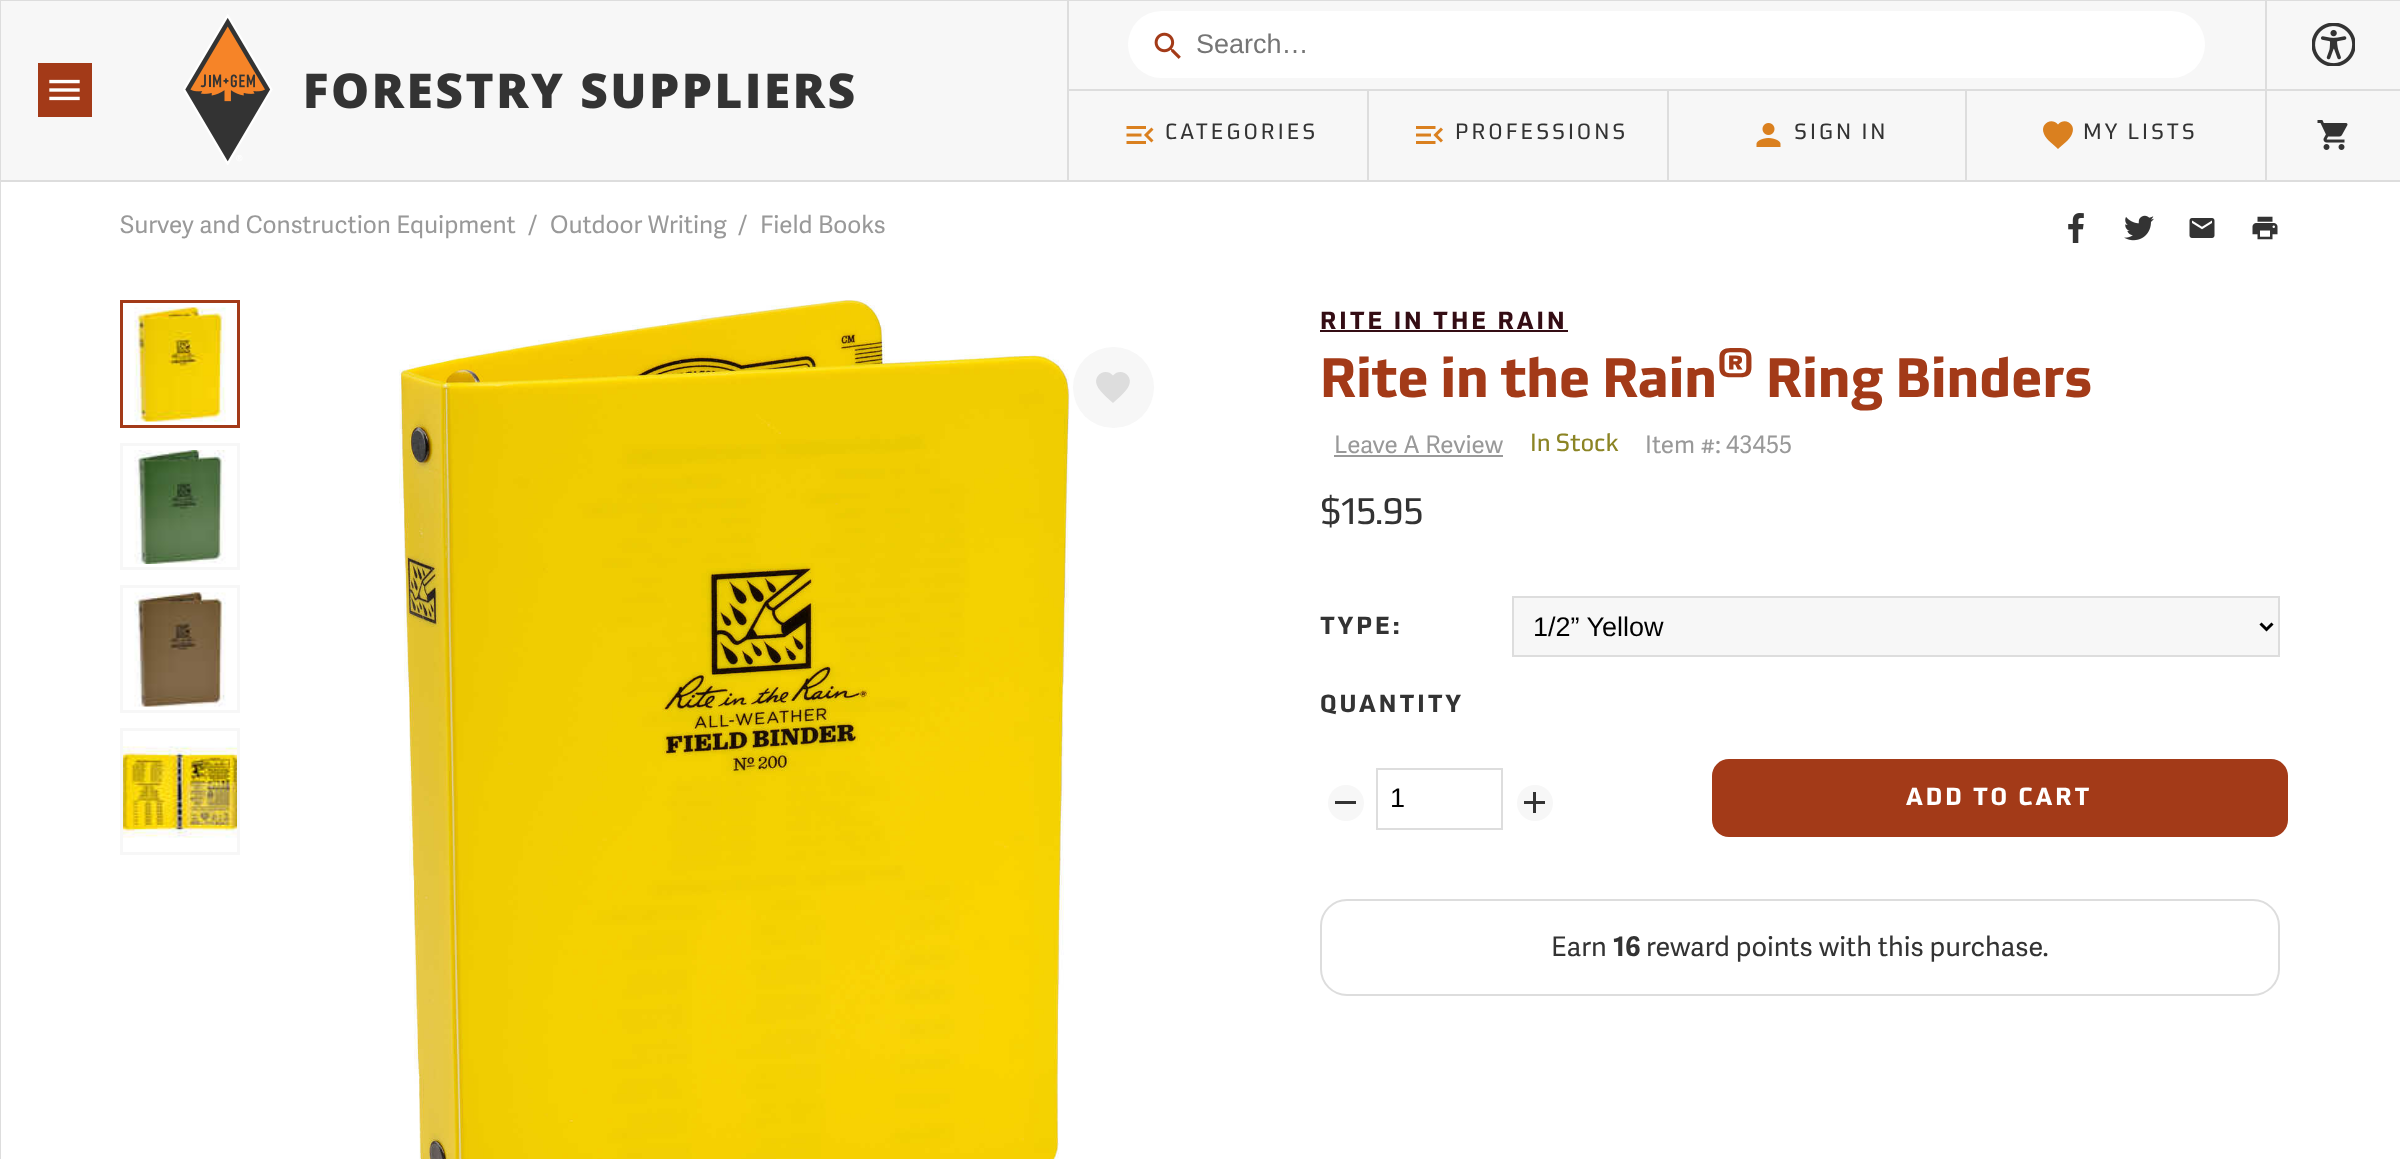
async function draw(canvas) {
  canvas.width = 2400
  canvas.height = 1159
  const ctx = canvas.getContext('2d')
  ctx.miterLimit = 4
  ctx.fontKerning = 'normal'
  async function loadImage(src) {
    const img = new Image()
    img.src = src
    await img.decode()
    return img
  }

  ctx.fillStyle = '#fff'
  ctx.fillRect(0, 0, 2400, 1159)
  ctx.fillStyle = '#ddd'
  ctx.fillRect(0, 182, 1, 977)
  ctx.fillStyle = '#f7f7f7'
  ctx.beginPath()
  ctx.rect(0, 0, 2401, 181)
  ctx.fill()
  ctx.strokeStyle = '#ddd'
  ctx.lineWidth = 2
  ctx.stroke()
  ctx.fillStyle = '#a33a18'
  ctx.fillRect(38, 63, 54, 54)
  ctx.drawImage(await loadImage('image0.png'), 49, 79, 31, 22)
  ctx.drawImage(await loadImage('image1.png'), 183, 14, 671, 151)
  ctx.fillStyle = '#ddd'
  ctx.fillRect(1067, 0, 2, 180)
  ctx.fillRect(1068, 89, 1332, 2)
  ctx.fillRect(2265, 0, 2, 89)
  ctx.fillStyle = '#fff'
  ctx.beginPath()
  ctx.roundRect(1128, 11, 1077, 67, 33.5)
  ctx.fill()
  ctx.drawImage(await loadImage('image2.png'), 1154, 32, 27, 27)
  ctx.font = '27px Liberation Sans'
  ctx.fillStyle = '#757575'
  ctx.fillText('Search…', 1196, 53)
  ctx.drawImage(await loadImage('image3.png'), 2312, 23, 43, 43)
  ctx.fillStyle = '#ddd'
  ctx.fillRect(1367, 90, 2, 90)
  ctx.drawImage(await loadImage('image4.png'), 1126, 126, 28, 18)
  ctx.letterSpacing = '3px'
  ctx.font = '21.5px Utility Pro'
  ctx.fillStyle = '#333'
  ctx.fillText('CATEGORIES', 1165, 139)
  ctx.fillStyle = '#ddd'
  ctx.fillRect(1667, 90, 2, 90)
  ctx.drawImage(await loadImage('image5.png'), 1416, 126, 27, 18)
  ctx.fillStyle = '#333'
  ctx.fillText('PROFESSIONS', 1455, 139)
  ctx.fillStyle = '#ddd'
  ctx.fillRect(1965, 90, 2, 90)
  ctx.drawImage(await loadImage('image6.png'), 1756, 123, 25, 24)
  ctx.fillStyle = '#333'
  ctx.fillText('SIGN IN', 1794, 139)
  ctx.fillStyle = '#ddd'
  ctx.fillRect(2265, 90, 2, 90)
  ctx.fillStyle = '#da801f'
  ctx.beginPath()
  ctx.moveTo(2058, 149)
  ctx.bezierCurveTo(2053.5, 144.5, 2046.5, 140, 2044, 134)
  ctx.bezierCurveTo(2039.5, 124, 2051.5, 117, 2058, 124.5)
  ctx.bezierCurveTo(2064.5, 117, 2076.5, 124, 2072, 134)
  ctx.bezierCurveTo(2069.5, 140, 2063, 144.5, 2058, 149)
  ctx.closePath()
  ctx.fill()
  ctx.fillStyle = '#333'
  ctx.fillText('MY LISTS', 2083, 139)
  ctx.drawImage(await loadImage('image7.png'), 2317, 120, 31, 30)
  ctx.letterSpacing = '0px'
  ctx.font = '24.25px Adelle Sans'
  ctx.fillStyle = '#999'
  ctx.fillText('Survey and Construction Equipment', 120, 233)
  ctx.fillText('/', 528, 233)
  ctx.fillText('Outdoor Writing', 550, 233)
  ctx.fillText('/', 738, 233)
  ctx.fillText('Field Books', 760, 233)
  ctx.drawImage(await loadImage('image8.png'), 2068, 213, 16, 30)
  ctx.drawImage(await loadImage('image9.png'), 2124, 215, 30, 26)
  ctx.drawImage(await loadImage('image10.png'), 2189, 218, 26, 20)
  ctx.drawImage(await loadImage('image11.png'), 2252, 216, 26, 24)
  ctx.drawImage(await loadImage('image12.png'), 134, 307, 92, 115)
  ctx.strokeStyle = '#a33a18'
  ctx.lineWidth = 3
  ctx.strokeRect(121.5, 301.5, 117, 125)
  ctx.drawImage(await loadImage('image13.png'), 134, 450, 92, 114)
  ctx.strokeStyle = '#f7f7f7'
  ctx.strokeRect(121.5, 444.5, 117, 124)
  ctx.drawImage(await loadImage('image14.png'), 134, 592, 92, 115)
  ctx.strokeRect(121.5, 586.5, 117, 125)
  ctx.drawImage(await loadImage('image15.png'), 123, 746, 114, 92)
  ctx.strokeRect(121.5, 729.5, 117, 124)
  ctx.drawImage(await loadImage('image16.png'), 399, 300, 671, 859)
  ctx.fillStyle = '#f7f7f7'
  ctx.beginPath()
  ctx.arc(1113.5, 387.5, 40.5, 0, 2 * Math.PI)
  ctx.fill()
  ctx.fillStyle = '#ddd'
  ctx.beginPath()
  ctx.moveTo(1113, 403)
  ctx.bezierCurveTo(1107.5, 398, 1100, 392, 1097, 385.5)
  ctx.bezierCurveTo(1092.5, 375, 1106, 367, 1113, 375.5)
  ctx.bezierCurveTo(1120, 367, 1133.5, 375, 1129, 385.5)
  ctx.bezierCurveTo(1126, 392, 1118.5, 398, 1113, 403)
  ctx.closePath()
  ctx.fill()
  ctx.letterSpacing = '3px'
  ctx.font = 'bold 24.25px Utility Pro'
  ctx.fillStyle = '#340d14'
  ctx.fillText('RITE IN THE RAIN', 1320, 329)
  ctx.fillRect(1320, 330, 248, 2)
  ctx.letterSpacing = '0px'
  ctx.font = 'bold 54px Utility Pro'
  ctx.fillStyle = '#a33a18'
  ctx.fillText('Rite in the Rain', 1320, 397)
  ctx.font = 'bold 40px Utility Pro'
  ctx.fillText('®', 1717, 377)
  ctx.font = 'bold 54px Utility Pro'
  ctx.fillText('Ring Binders', 1766, 397)
  ctx.font = '24.25px Adelle Sans'
  ctx.fillStyle = '#999'
  ctx.fillText('Leave A Review', 1334, 453)
  ctx.fillRect(1334, 455, 169, 2)
  ctx.font = '24.25px Utility Pro'
  ctx.fillStyle = '#8b8424'
  ctx.fillText('In Stock', 1530, 451)
  ctx.font = '24.25px Adelle Sans'
  ctx.fillStyle = '#999'
  ctx.fillText('Item #: 43455', 1645, 453)
  ctx.font = '36px Utility Pro'
  ctx.fillStyle = '#333'
  ctx.fillText('$15.95', 1320, 524)
  ctx.letterSpacing = '3px'
  ctx.font = 'bold 24.25px Utility Pro'
  ctx.fillText('TYPE:', 1320, 634)
  ctx.fillStyle = '#f7f7f7'
  ctx.beginPath()
  ctx.rect(1513, 597, 766, 59)
  ctx.fill()
  ctx.strokeStyle = '#ddd'
  ctx.lineWidth = 2
  ctx.stroke()
  ctx.beginPath()
  ctx.moveTo(2260.5, 623.5)
  ctx.lineTo(2266.5, 629.5)
  ctx.lineTo(2272.5, 623.5)
  ctx.strokeStyle = '#000'
  ctx.lineWidth = 3
  ctx.stroke()
  ctx.letterSpacing = '0px'
  ctx.font = '27px Liberation Sans'
  ctx.fillStyle = '#000'
  ctx.fillText('1/2” Yellow', 1533, 636)
  ctx.letterSpacing = '3px'
  ctx.font = 'bold 24.25px Utility Pro'
  ctx.fillStyle = '#333'
  ctx.fillText('QUANTITY', 1320, 712)
  ctx.fillStyle = '#f7f7f7'
  ctx.beginPath()
  ctx.arc(1346, 803, 18, 0, 2 * Math.PI)
  ctx.fill()
  ctx.fillStyle = '#333'
  ctx.fillRect(1335, 801, 21, 3)
  ctx.strokeStyle = '#ddd'
  ctx.lineWidth = 2
  ctx.strokeRect(1377, 769, 125, 60)
  ctx.letterSpacing = '0px'
  ctx.font = '27px Liberation Sans'
  ctx.fillStyle = '#000'
  ctx.fillText('1', 1390, 807)
  ctx.fillStyle = '#f7f7f7'
  ctx.beginPath()
  ctx.arc(1535, 803, 18, 0, 2 * Math.PI)
  ctx.fill()
  ctx.drawImage(await loadImage('image17.png'), 1524, 792, 21, 21)
  ctx.fillStyle = '#a33a18'
  ctx.beginPath()
  ctx.roundRect(1712, 759, 576, 78, 17)
  ctx.fill()
  ctx.letterSpacing = '3px'
  ctx.font = 'bold 24.25px Utility Pro'
  ctx.fillStyle = '#fff'
  ctx.fillText('ADD TO CART', 1906, 805)
  ctx.beginPath()
  ctx.roundRect(1321, 900, 958, 95, 26)
  ctx.stroke()
  ctx.letterSpacing = '0px'
  ctx.font = '27px Adelle Sans'
  ctx.fillStyle = '#333'
  ctx.fillText('Earn', 1551, 956)
  ctx.font = 'bold 27px Adelle Sans'
  ctx.fillText('16', 1613, 956)
  ctx.font = '27px Adelle Sans'
  ctx.fillText('reward points with this purchase.', 1646, 956)
}

draw(document.querySelector('canvas'))
